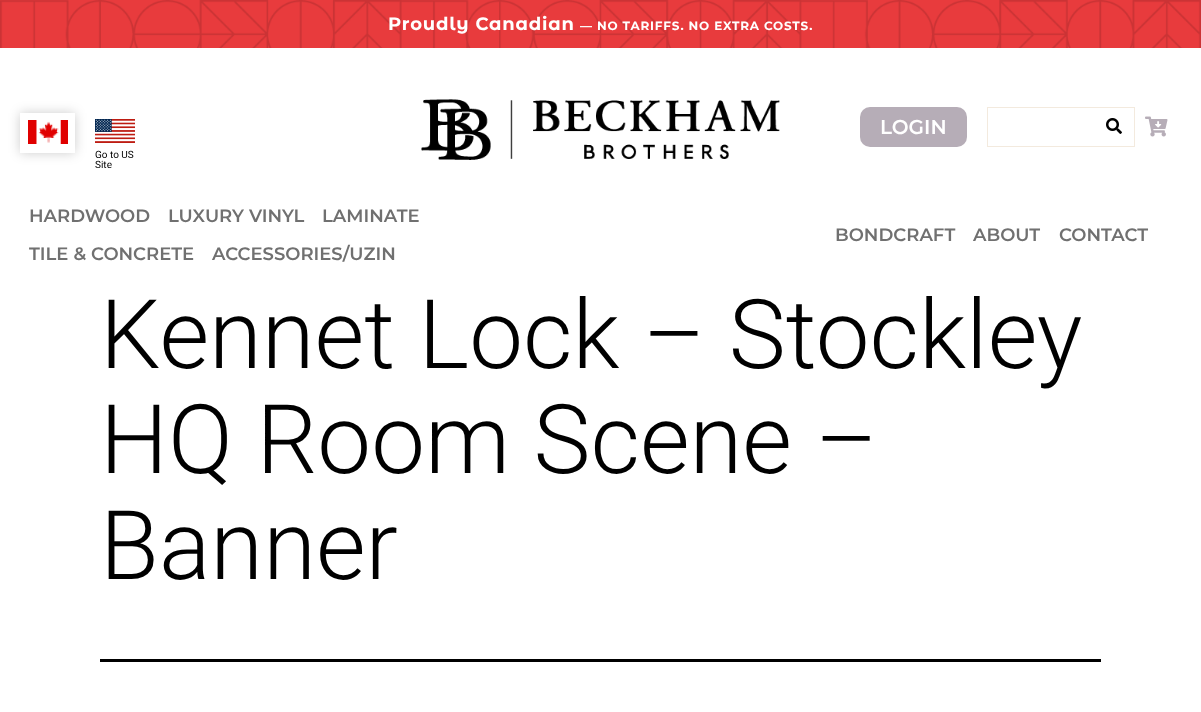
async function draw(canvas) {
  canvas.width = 1201
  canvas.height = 712
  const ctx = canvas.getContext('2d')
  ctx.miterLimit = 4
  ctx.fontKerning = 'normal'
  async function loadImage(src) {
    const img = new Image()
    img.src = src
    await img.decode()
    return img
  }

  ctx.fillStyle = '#fff'
  ctx.fillRect(0, 0, 1201, 712)
  ctx.fillStyle = '#e83b3d'
  ctx.fillRect(0, 0, 1201, 48)
  ctx.drawImage(await loadImage('image0.png'), 0, 0, 1201, 48)
  ctx.letterSpacing = '0.8px'
  ctx.font = 'bold 18px Montserrat Alternates'
  ctx.fillStyle = '#fff'
  ctx.fillText('Proudly Canadian', 388, 30)
  ctx.font = 'bold 12px Montserrat'
  ctx.fillText('— NO TARIFFS. NO EXTRA COSTS.', 580, 30)
  ctx.drawImage(await loadImage('image1.png'), 421, 99, 359, 61)
  ctx.fillStyle = '#b6adb7'
  ctx.beginPath()
  ctx.roundRect(860, 107, 107, 40, 10)
  ctx.fill()
  ctx.letterSpacing = '0px'
  ctx.font = '600 20px Montserrat'
  ctx.fillStyle = '#fff'
  ctx.fillText('LOGIN', 880, 134)
  ctx.fillStyle = '#f3eade'
  ctx.fillRect(987, 107, 148, 1)
  ctx.fillRect(987, 146, 107, 1)
  ctx.fillRect(987, 107, 1, 40)
  ctx.fillRect(1134, 107, 1, 40)
  ctx.fillRect(1094, 146, 41, 1)
  ctx.drawImage(await loadImage('image2.png'), 1106, 118, 16, 16)
  ctx.drawImage(await loadImage('image3.png'), 1145, 116, 23, 21)
  ctx.save()
  ctx.beginPath()
  ctx.moveTo(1, 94)
  ctx.lineTo(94, 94)
  ctx.lineTo(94, 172)
  ctx.lineTo(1, 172)
  ctx.closePath()
  ctx.moveTo(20, 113)
  ctx.lineTo(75, 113)
  ctx.lineTo(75, 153)
  ctx.lineTo(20, 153)
  ctx.closePath()
  ctx.clip('evenodd')
  ctx.fillStyle = '#00000033'
  ctx.filter = 'blur(6px)'
  ctx.beginPath()
  ctx.rect(20, 113, 55, 40)
  ctx.fill()
  ctx.filter = 'none'
  ctx.restore()
  ctx.drawImage(await loadImage('image4.png'), 28, 120, 40, 24)
  ctx.drawImage(await loadImage('image5.png'), 95, 119, 40, 24)
  ctx.font = '10px Roboto'
  ctx.fillStyle = '#000'
  ctx.fillText('Go to US', 95, 158)
  ctx.fillText('Site', 95, 168)
  ctx.font = '600 18px Montserrat'
  ctx.fillStyle = '#707070'
  ctx.fillText('HARDWOOD', 29, 222)
  ctx.fillText('LUXURY VINYL', 168, 222)
  ctx.fillText('LAMINATE', 322, 222)
  ctx.fillText('TILE & CONCRETE', 29, 260)
  ctx.fillText('ACCESSORIES/UZIN', 212, 260)
  ctx.fillText('BONDCRAFT', 835, 241)
  ctx.fillText('ABOUT', 973, 241)
  ctx.fillText('CONTACT', 1059, 241)
  ctx.fillStyle = '#000'
  ctx.fillRect(100, 659, 1001, 3)
  ctx.font = '300 96px Roboto'
  ctx.fillText('Kennet Lock – Stockley', 100, 368)
  ctx.fillText('HQ Room Scene –', 100, 473)
  ctx.fillText('Banner', 100, 579)
}

draw(document.querySelector('canvas'))
